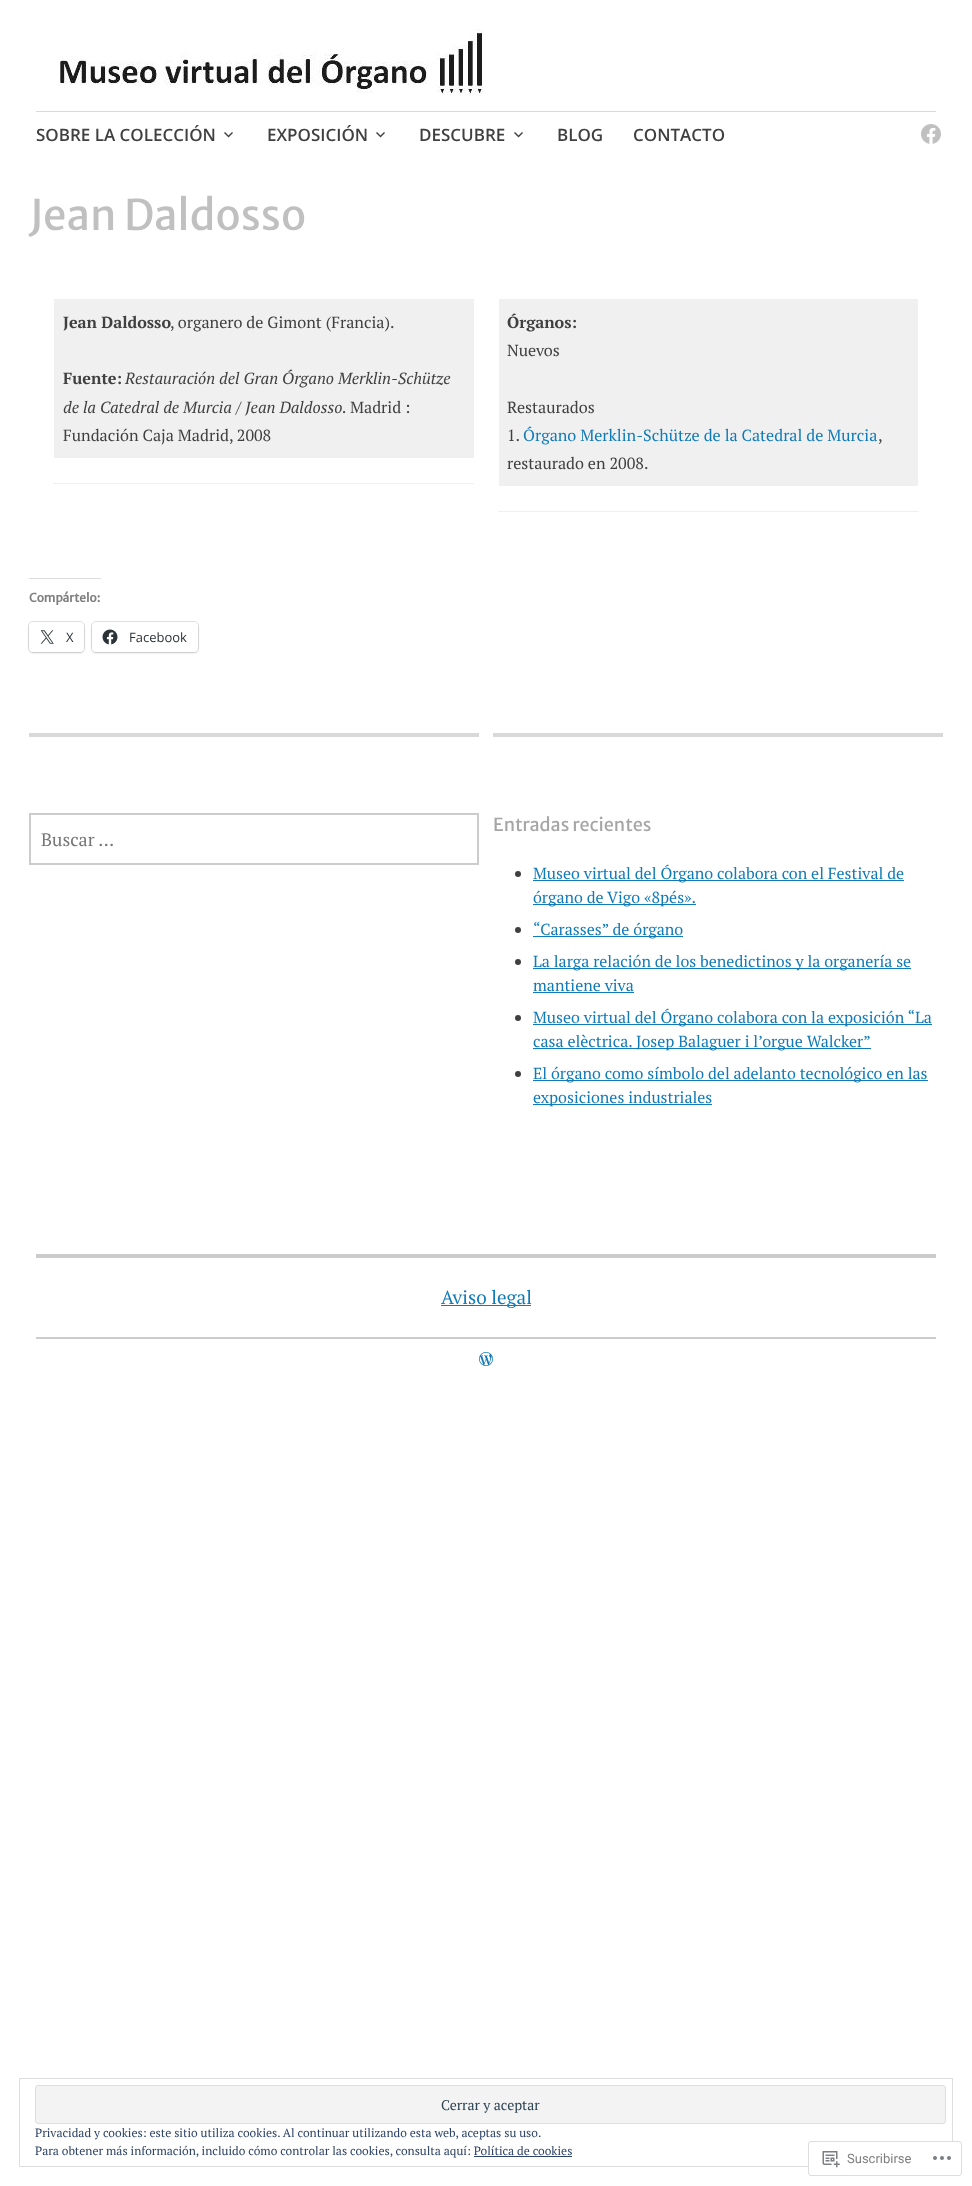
async function draw(canvas) {
  canvas.width = 972
  canvas.height = 2186
  const ctx = canvas.getContext('2d')
  ctx.miterLimit = 4
  ctx.fontKerning = 'normal'
  async function loadImage(src) {
    const img = new Image()
    img.src = src
    await img.decode()
    return img
  }

  ctx.fillStyle = '#fff'
  ctx.fillRect(0, 0, 972, 2186)
  ctx.drawImage(await loadImage('image0.png'), 60, 29, 424, 67)
  ctx.fillStyle = '#d9d9d9'
  ctx.fillRect(36, 111, 900, 1)
  ctx.font = '600 17px Open Sans'
  ctx.fillStyle = '#404040'
  ctx.fillText('SOBRE LA COLECCIÓN', 36, 141)
  ctx.drawImage(await loadImage('image1.png'), 224, 132, 9, 6)
  ctx.fillText('EXPOSICIÓN', 267, 141)
  ctx.drawImage(await loadImage('image1.png'), 376, 132, 9, 6)
  ctx.fillText('DESCUBRE', 419, 141)
  ctx.drawImage(await loadImage('image1.png'), 514, 132, 9, 6)
  ctx.fillText('BLOG', 557, 141)
  ctx.fillText('CONTACTO', 633, 141)
  ctx.drawImage(await loadImage('image2.png'), 921, 124, 20, 20)
  ctx.font = '42px Merriweather Sans'
  ctx.fillStyle = '#c0c0c0'
  ctx.fillText('Jean Daldosso', 29, 230)
  ctx.fillStyle = '#f0f0f0'
  ctx.fillRect(53, 483, 421, 1)
  ctx.fillRect(54, 299, 420, 159)
  ctx.font = 'bold 16.15px PT Serif'
  ctx.fillStyle = '#404040'
  ctx.fillText('Jean Daldosso', 63, 328)
  ctx.font = '16.15px PT Serif'
  ctx.fillText(', organero de Gimont (Francia).', 170, 328)
  ctx.font = 'bold 16.15px PT Serif'
  ctx.fillText('Fuente:', 63, 384)
  ctx.font = 'italic 16.15px PT Serif'
  ctx.fillText('Restauración del Gran Órgano Merklin-Schütze', 125, 384)
  ctx.fillText('de la Catedral de Murcia / Jean Daldosso.', 63, 413)
  ctx.font = '16.15px PT Serif'
  ctx.fillText('Madrid :', 350, 413)
  ctx.fillText('Fundación Caja Madrid, 2008', 63, 441)
  ctx.fillStyle = '#f0f0f0'
  ctx.fillRect(498, 511, 421, 1)
  ctx.fillRect(499, 299, 419, 187)
  ctx.font = 'bold 16.15px PT Serif'
  ctx.fillStyle = '#404040'
  ctx.fillText('Órganos:', 507, 328)
  ctx.font = '16.15px PT Serif'
  ctx.fillText('Nuevos', 507, 356)
  ctx.fillText('Restaurados', 507, 413)
  ctx.fillText('1.', 507, 441)
  ctx.fillStyle = '#117bb8'
  ctx.fillText('Órgano Merklin-Schütze de la Catedral de Murcia', 523, 441)
  ctx.fillStyle = '#404040'
  ctx.fillText(',', 878, 441)
  ctx.fillText('restaurado en 2008.', 507, 469)
  ctx.fillStyle = '#dcdcde'
  ctx.fillRect(29, 578, 72, 1)
  ctx.font = 'bold 12px Merriweather Sans'
  ctx.fillStyle = '#808080'
  ctx.fillText('Compártelo:', 29, 602)
  ctx.beginPath()
  ctx.roundRect(28.5, 621.5, 56, 31, 4.5)
  ctx.strokeStyle = '#e0e0e0'
  ctx.stroke()
  ctx.fillStyle = '#0000001f'
  ctx.filter = 'blur(1px)'
  ctx.beginPath()
  ctx.roundRect(29, 623, 55, 30, 4)
  ctx.fill()
  ctx.filter = 'none'
  ctx.fillStyle = '#fff'
  ctx.beginPath()
  ctx.roundRect(29, 622, 55, 30, 4)
  ctx.fill()
  ctx.drawImage(await loadImage('image3.png'), 40, 630, 14, 14)
  ctx.font = '13px Open Sans'
  ctx.fillStyle = '#2c3338'
  ctx.fillText('X', 66, 642)
  ctx.beginPath()
  ctx.roundRect(91.5, 621.5, 107, 31, 4.5)
  ctx.stroke()
  ctx.fillStyle = '#0000001f'
  ctx.filter = 'blur(1px)'
  ctx.beginPath()
  ctx.roundRect(92, 623, 106, 30, 4)
  ctx.fill()
  ctx.filter = 'none'
  ctx.fillStyle = '#fff'
  ctx.beginPath()
  ctx.roundRect(92, 622, 106, 30, 4)
  ctx.fill()
  ctx.drawImage(await loadImage('image4.png'), 102, 629, 16, 16)
  ctx.fillStyle = '#2c3338'
  ctx.fillText('Facebook', 129, 642)
  ctx.fillStyle = '#d9d9d9'
  ctx.fillRect(29, 733, 450, 4)
  ctx.strokeStyle = '#ccc'
  ctx.lineWidth = 2
  ctx.strokeRect(30, 814, 448, 50)
  ctx.font = '18px PT Serif'
  ctx.fillStyle = '#757575'
  ctx.fillText('Buscar …', 41, 846)
  ctx.fillStyle = '#d9d9d9'
  ctx.fillRect(493, 733, 450, 4)
  ctx.font = '18px Merriweather Sans'
  ctx.fillStyle = '#a6a6a6'
  ctx.fillText('Entradas recientes', 493, 831)
  ctx.fillStyle = '#404040'
  ctx.beginPath()
  ctx.arc(518, 874, 3, 0, 2 * Math.PI)
  ctx.fill()
  ctx.fillStyle = '#117bb8'
  ctx.fillRect(533, 880, 371, 1)
  ctx.font = '16px PT Serif'
  ctx.fillText('Museo virtual del Órgano colabora con el Festival de', 533, 879)
  ctx.fillRect(533, 904, 163, 1)
  ctx.fillText('órgano de Vigo «8pés».', 533, 903)
  ctx.fillStyle = '#404040'
  ctx.beginPath()
  ctx.arc(518, 930, 3, 0, 2 * Math.PI)
  ctx.fill()
  ctx.fillStyle = '#117bb8'
  ctx.fillRect(533, 936, 150, 1)
  ctx.fillText('“Carasses” de órgano', 533, 935)
  ctx.fillStyle = '#404040'
  ctx.beginPath()
  ctx.arc(518, 962, 3, 0, 2 * Math.PI)
  ctx.fill()
  ctx.fillStyle = '#117bb8'
  ctx.fillRect(533, 968, 378, 1)
  ctx.fillText('La larga relación de los benedictinos y la organería se', 533, 967)
  ctx.fillText('mantiene viva', 533, 991)
  ctx.fillRect(533, 992, 101, 1)
  ctx.fillStyle = '#404040'
  ctx.beginPath()
  ctx.arc(518, 1018, 3, 0, 2 * Math.PI)
  ctx.fill()
  ctx.fillStyle = '#117bb8'
  ctx.fillRect(533, 1024, 399, 1)
  ctx.fillText('Museo virtual del Órgano colabora con la exposición “La', 533, 1023)
  ctx.fillRect(533, 1048, 338, 1)
  ctx.fillText('casa elèctrica. Josep Balaguer i l’orgue Walcker”', 533, 1047)
  ctx.fillStyle = '#404040'
  ctx.beginPath()
  ctx.arc(518, 1074, 3, 0, 2 * Math.PI)
  ctx.fill()
  ctx.fillStyle = '#117bb8'
  ctx.fillRect(533, 1080, 395, 1)
  ctx.fillText('El órgano como símbolo del adelanto tecnológico en las', 533, 1079)
  ctx.fillRect(533, 1104, 179, 1)
  ctx.fillText('exposiciones industriales', 533, 1103)
  ctx.fillStyle = '#ccc'
  ctx.fillRect(36, 1254, 900, 4)
  ctx.fillStyle = '#117bb8'
  ctx.fillRect(441, 1305, 90, 1)
  ctx.font = '19px PT Serif'
  ctx.fillText('Aviso legal', 441, 1304)
  ctx.fillStyle = '#ccc'
  ctx.fillRect(36, 1337, 900, 2)
  ctx.drawImage(await loadImage('image5.png'), 479, 1352, 14, 14)
  ctx.strokeStyle = '#dedede'
  ctx.lineWidth = 1
  ctx.strokeRect(19.5, 2078.5, 933, 88)
  ctx.fillStyle = '#f3f3f3'
  ctx.beginPath()
  ctx.roundRect(35.5, 2085.5, 910, 38, 2.5)
  ctx.fill()
  ctx.stroke()
  ctx.font = '14px PT Serif'
  ctx.fillStyle = '#2e4453'
  ctx.fillText('Cerrar y aceptar', 441, 2110)
  ctx.font = '12px PT Serif'
  ctx.fillStyle = '#2e4467'
  ctx.fillText('Privacidad y cookies: este sitio utiliza cookies. Al continuar utilizando esta web, aceptas su uso.', 35, 2137)
  ctx.fillText('Para obtener más información, incluido cómo controlar las cookies, consulta aquí: Política de cookies', 35, 2155)
  ctx.fillRect(474, 2156, 98, 1)
  ctx.fillStyle = '#fffffffa'
  ctx.beginPath()
  ctx.roundRect(808.5, 2141.5, 153, 34, 2.5)
  ctx.fill()
  ctx.strokeStyle = '#dddddf'
  ctx.stroke()
  ctx.drawImage(await loadImage('image6.png'), 822, 2151, 18, 17)
  ctx.font = '13px Roboto'
  ctx.fillStyle = '#808080'
  ctx.fillText('Suscribirse', 847, 2163)
  ctx.drawImage(await loadImage('image7.png'), 933, 2156, 18, 4)
}

draw(document.querySelector('canvas'))
